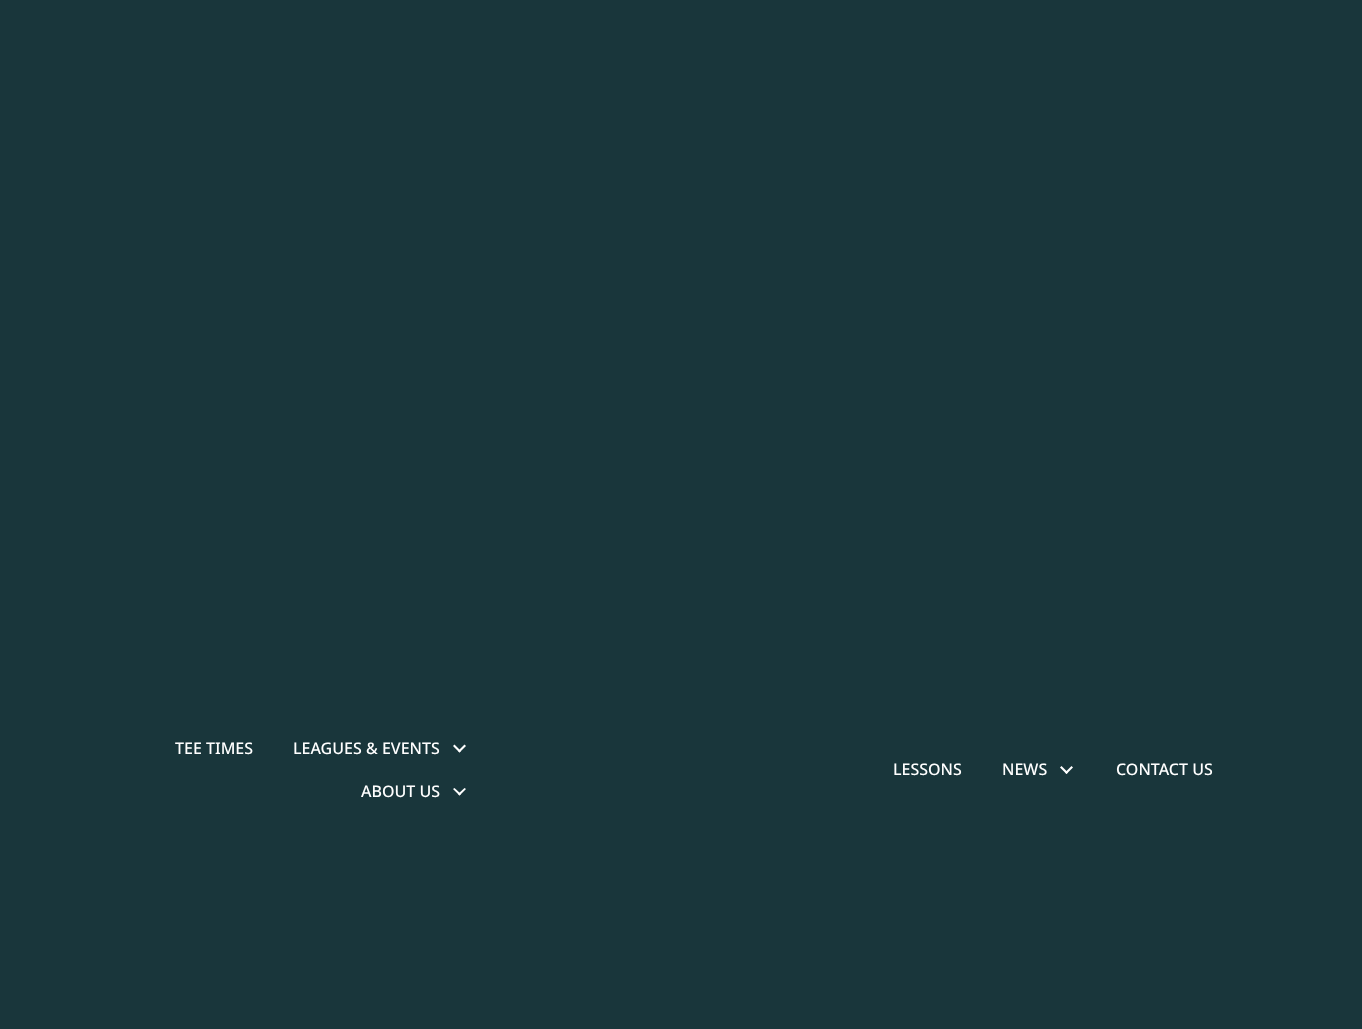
async function draw(canvas) {
  canvas.width = 1362
  canvas.height = 1029
  const ctx = canvas.getContext('2d')
  ctx.miterLimit = 4
  ctx.fontKerning = 'normal'

  ctx.fillStyle = '#19363b'
  ctx.fillRect(0, 0, 1362, 1029)
  ctx.font = '500 16px Noto Sans'
  ctx.fillStyle = '#fff'
  ctx.fillText('TEE TIMES', 175, 754)
  ctx.fillText('LEAGUES & EVENTS', 293, 754)
  ctx.beginPath()
  ctx.moveTo(464.5, 744.5)
  ctx.lineTo(466, 746)
  ctx.lineTo(459.5, 752.5)
  ctx.lineTo(458, 751)
  ctx.closePath()
  ctx.fill()
  ctx.beginPath()
  ctx.moveTo(454.5, 744.5)
  ctx.lineTo(461, 751)
  ctx.lineTo(459.5, 752.5)
  ctx.lineTo(453, 746)
  ctx.closePath()
  ctx.moveTo(464.5, 788)
  ctx.lineTo(466, 789)
  ctx.lineTo(459.5, 795.5)
  ctx.lineTo(458, 794)
  ctx.closePath()
  ctx.fill()
  ctx.fillText('ABOUT US', 361, 797)
  ctx.beginPath()
  ctx.moveTo(454.5, 788)
  ctx.lineTo(461, 794)
  ctx.lineTo(459.5, 795.5)
  ctx.lineTo(453, 789)
  ctx.closePath()
  ctx.fill()
  ctx.fillText('LESSONS', 893, 775)
  ctx.fillText('NEWS', 1002, 775)
  ctx.beginPath()
  ctx.moveTo(1071.5, 766)
  ctx.lineTo(1073, 767.5)
  ctx.lineTo(1066.5, 774)
  ctx.lineTo(1065, 772.5)
  ctx.closePath()
  ctx.fill()
  ctx.beginPath()
  ctx.moveTo(1061.5, 766)
  ctx.lineTo(1068, 772.5)
  ctx.lineTo(1066.5, 774)
  ctx.lineTo(1060, 767.5)
  ctx.closePath()
  ctx.fill()
  ctx.fillText('CONTACT US', 1116, 775)
}

draw(document.querySelector('canvas'))
